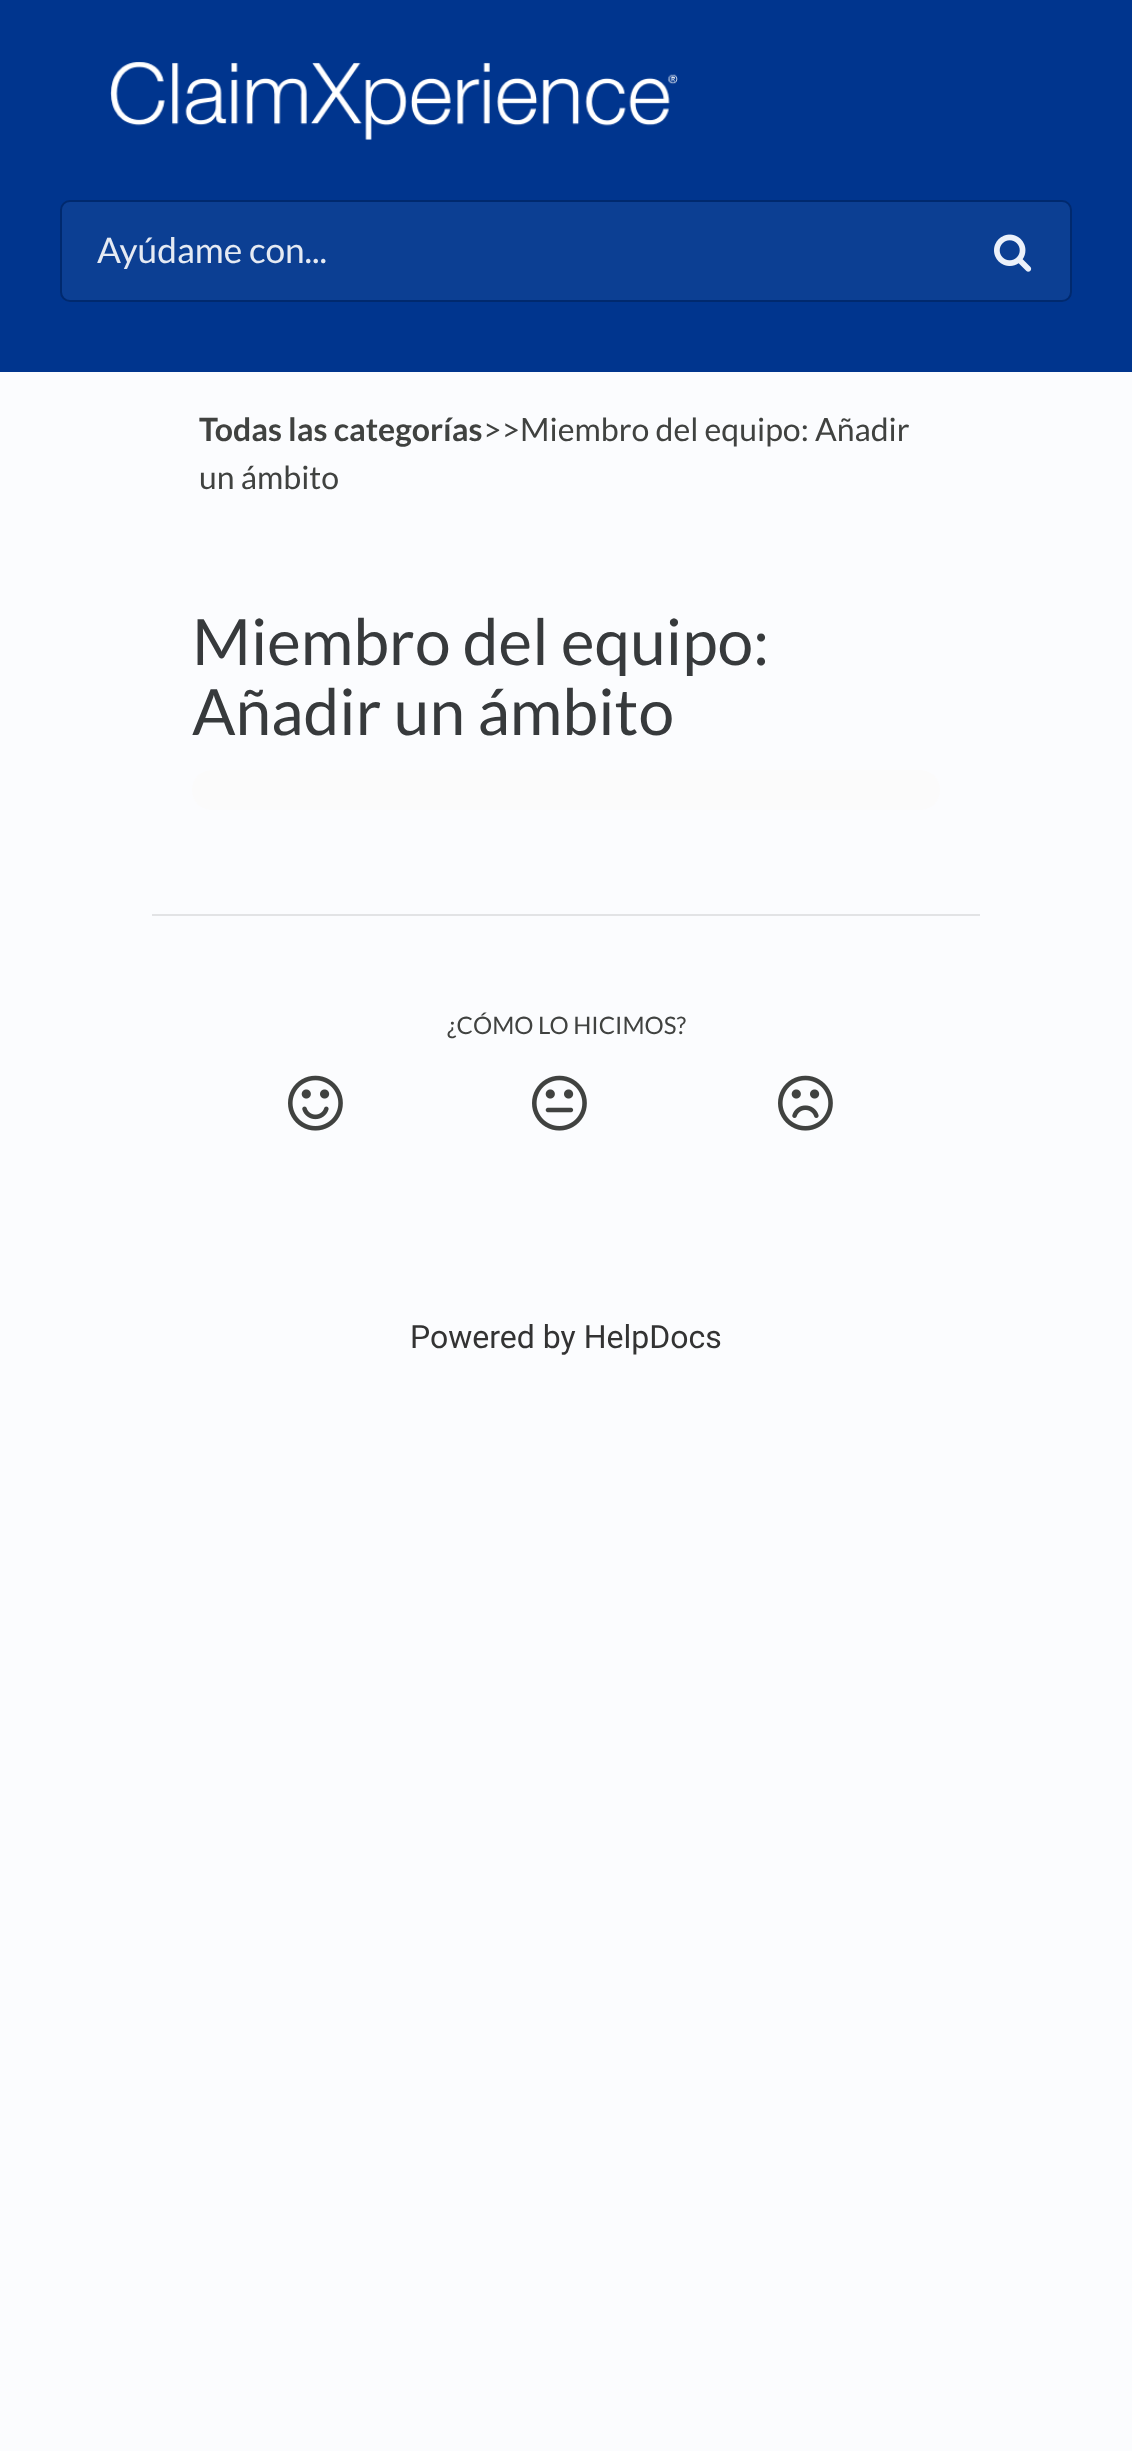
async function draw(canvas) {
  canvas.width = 1132
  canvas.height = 2451
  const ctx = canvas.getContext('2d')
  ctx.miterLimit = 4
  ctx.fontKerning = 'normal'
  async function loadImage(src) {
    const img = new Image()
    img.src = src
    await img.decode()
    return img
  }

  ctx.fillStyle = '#fbfcfe'
  ctx.fillRect(0, 0, 1132, 2451)
  ctx.fillStyle = '#00358e'
  ctx.fillRect(0, 0, 1132, 372)
  ctx.drawImage(await loadImage('image0.png'), 110, 61, 568, 79)
  ctx.fillStyle = '#0c3f93'
  ctx.beginPath()
  ctx.roundRect(61, 201, 1010, 100, 9)
  ctx.fill()
  ctx.strokeStyle = '#00296e'
  ctx.lineWidth = 2
  ctx.stroke()
  ctx.font = '35.25px Lato'
  ctx.fillStyle = '#e5eaf3'
  ctx.fillText('Ayúdame con...', 97, 263)
  ctx.drawImage(await loadImage('image1.png'), 994, 234, 38, 38)
  ctx.font = 'bold 32px Lato'
  ctx.fillStyle = '#404240'
  ctx.fillText('Todas las categorías', 199, 441)
  ctx.font = '32px Lato'
  ctx.fillText('>>Miembro del equipo: Añadir', 483, 441)
  ctx.fillText('un ámbito', 199, 489)
  ctx.font = '64px Lato'
  ctx.fillStyle = '#373a3c'
  ctx.fillText('Miembro del equipo:', 192, 665)
  ctx.fillText('Añadir un ámbito', 192, 735)
  ctx.fillStyle = '#fbfbfb'
  ctx.beginPath()
  ctx.roundRect(192, 770, 748, 40, 20)
  ctx.fill()
  ctx.fillStyle = '#e2e3e5'
  ctx.fillRect(152, 914, 828, 2)
  ctx.font = '24px Lato'
  ctx.fillStyle = '#404240'
  ctx.fillText('¿CÓMO LO HICIMOS?', 447, 1034)
  ctx.drawImage(await loadImage('image2.png'), 288, 1075, 55, 56)
  ctx.drawImage(await loadImage('image3.png'), 532, 1075, 55, 56)
  ctx.drawImage(await loadImage('image4.png'), 778, 1075, 55, 56)
  ctx.font = '32px Roboto'
  ctx.fillStyle = '#333'
  ctx.fillText('Powered by HelpDocs', 410, 1348)
}

draw(document.querySelector('canvas'))
